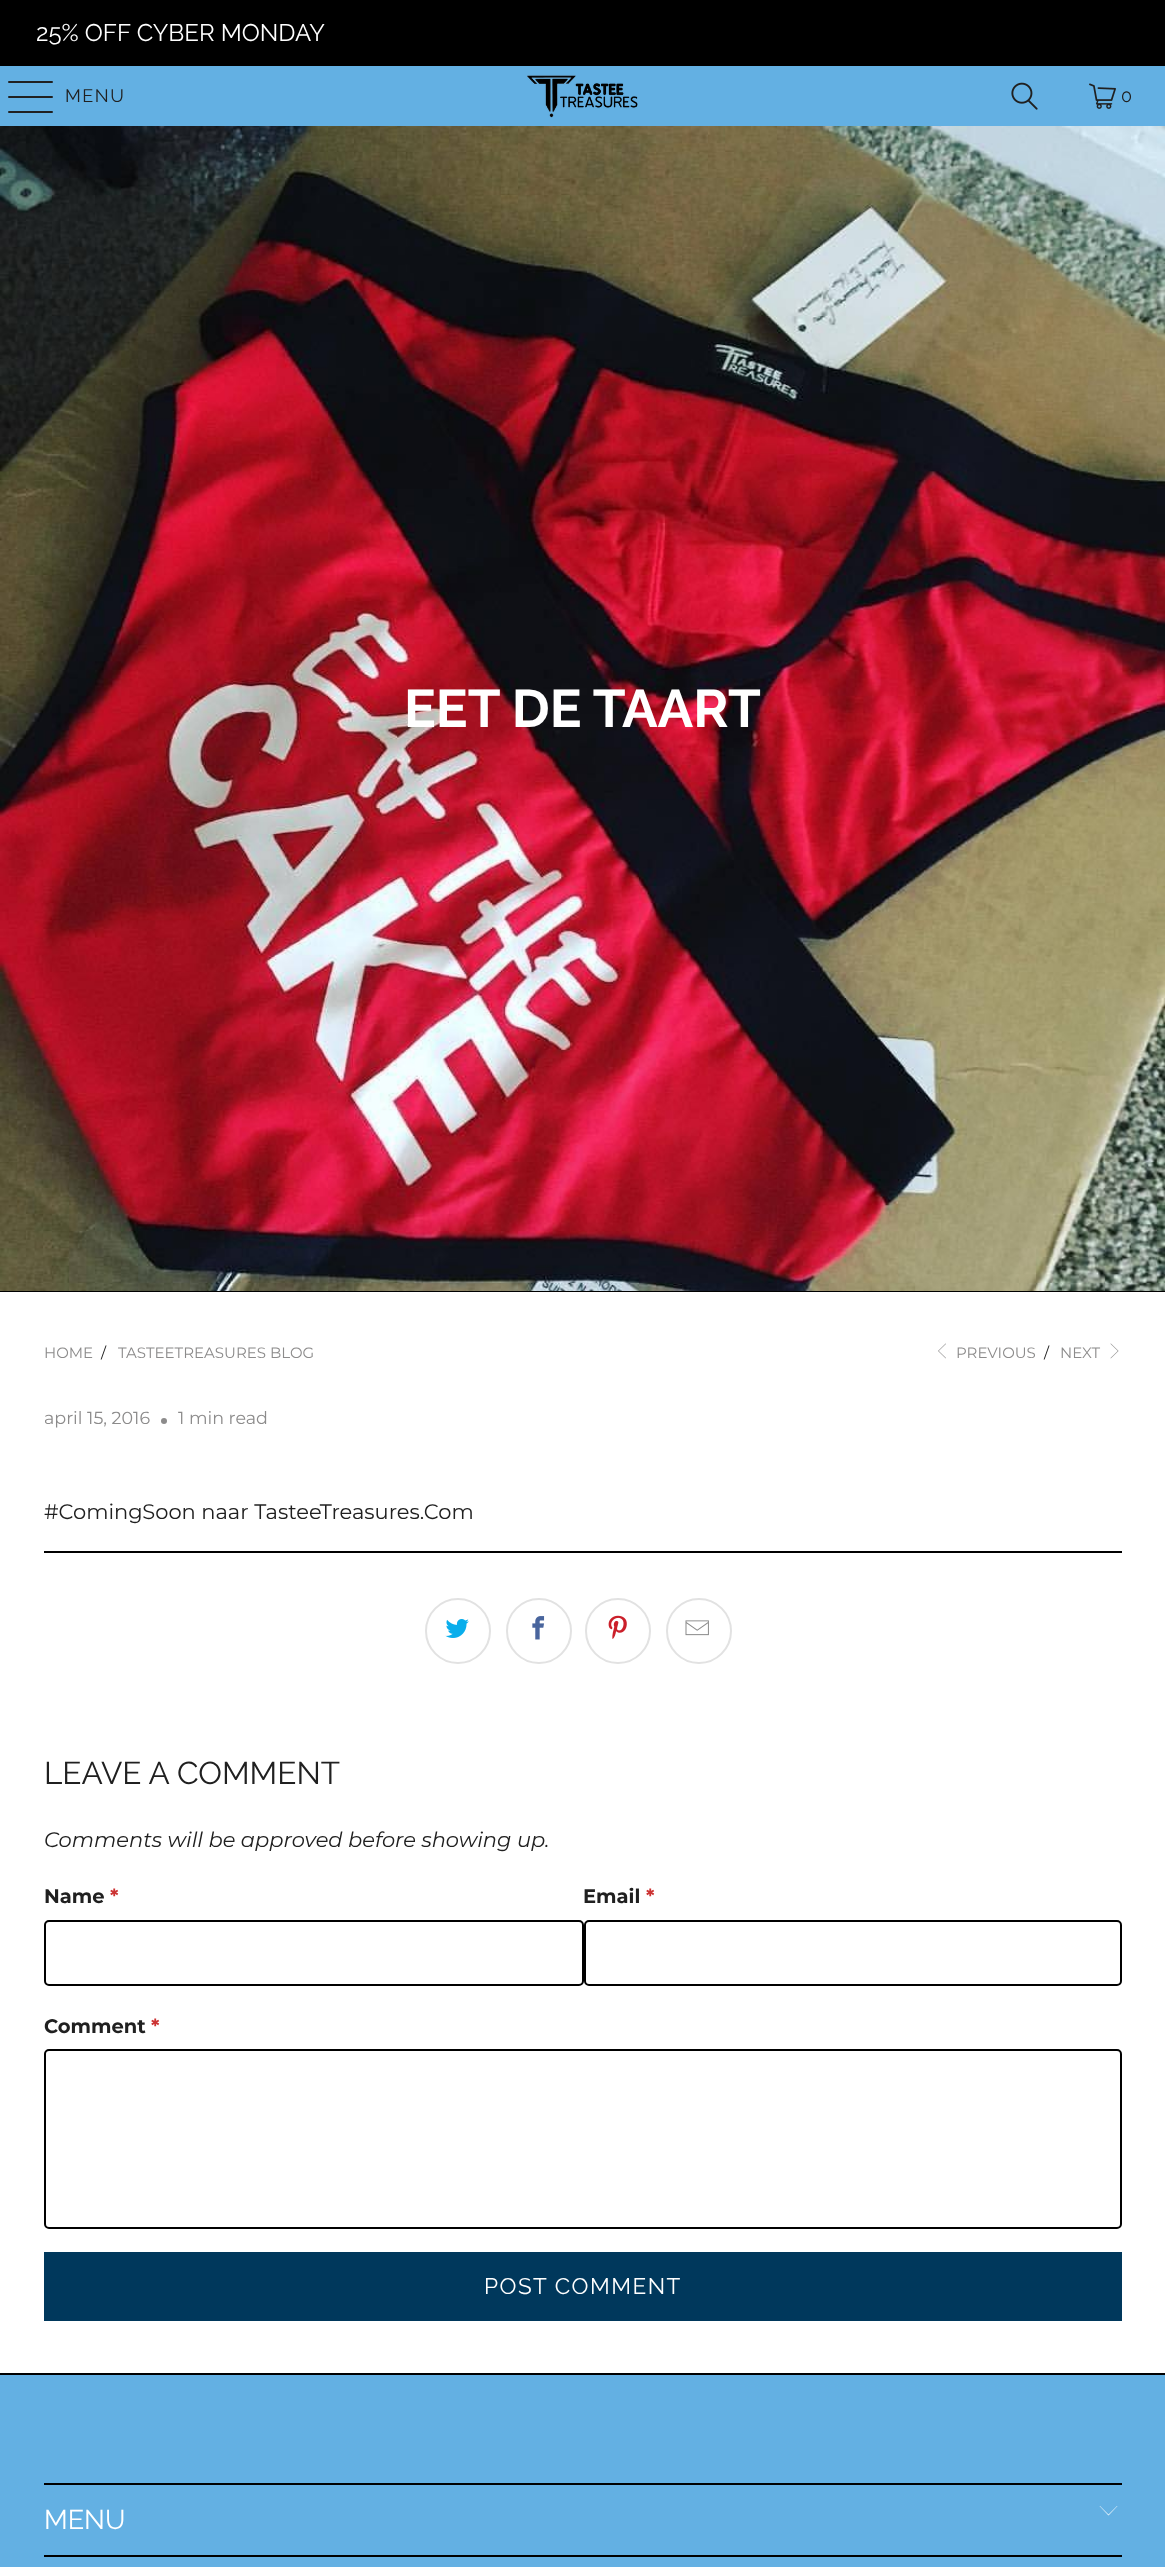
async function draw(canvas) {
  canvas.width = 1165
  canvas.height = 2567
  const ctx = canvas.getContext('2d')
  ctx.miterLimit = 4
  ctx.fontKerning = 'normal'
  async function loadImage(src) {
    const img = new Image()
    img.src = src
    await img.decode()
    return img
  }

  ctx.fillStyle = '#fff'
  ctx.fillRect(0, 0, 1165, 2567)
  ctx.fillStyle = '#000'
  ctx.fillRect(0, 0, 1165, 66)
  ctx.font = '24px Raleway'
  ctx.fillStyle = '#fff'
  ctx.fillText('25% OFF CYBER MONDAY', 36, 41)
  ctx.fillStyle = '#63b0e3'
  ctx.fillRect(0, 66, 1165, 60)
  ctx.fillStyle = '#202020'
  ctx.beginPath()
  ctx.roundRect(8, 81, 45, 2, 1)
  ctx.fill()
  ctx.beginPath()
  ctx.roundRect(8, 96, 45, 2, 1)
  ctx.fill()
  ctx.beginPath()
  ctx.roundRect(8, 111, 45, 2, 1)
  ctx.fill()
  ctx.letterSpacing = '1.5px'
  ctx.font = '18px Raleway'
  ctx.fillText('MENU', 65, 102)
  ctx.drawImage(await loadImage('image0.png'), 527, 75, 111, 43)
  ctx.drawImage(await loadImage('image1.png'), 1011, 82, 27, 28)
  ctx.drawImage(await loadImage('image2.png'), 1089, 83, 27, 26)
  ctx.fillText('0', 1121, 102)
  ctx.fillStyle = '#000'
  ctx.fillRect(0, 1291, 1165, 1)
  ctx.drawImage(await loadImage('image3.png'), 0, 126, 1165, 1165)
  ctx.letterSpacing = '0px'
  ctx.font = 'bold 53px Raleway'
  ctx.fillStyle = '#fff'
  ctx.fillText('EET DE TAART', 404, 727)
  ctx.font = '15px Montserrat'
  ctx.fillStyle = '#8c8b8b'
  ctx.fillText('HOME', 44, 1358)
  ctx.fillStyle = '#202020'
  ctx.fillText('/', 101, 1358)
  ctx.fillStyle = '#8c8b8b'
  ctx.fillText('TASTEETREASURES BLOG', 118, 1358)
  ctx.drawImage(await loadImage('image4.png'), 938, 1343, 8, 16)
  ctx.fillText('PREVIOUS', 956, 1358)
  ctx.fillStyle = '#202020'
  ctx.fillText('/', 1044, 1358)
  ctx.fillStyle = '#8c8b8b'
  ctx.fillText('NEXT', 1060, 1358)
  ctx.drawImage(await loadImage('image5.png'), 1110, 1343, 9, 16)
  ctx.font = '17.5px Montserrat'
  ctx.fillText('april 15, 2016', 44, 1424)
  ctx.beginPath()
  ctx.arc(164, 1421, 3, 0, 2 * Math.PI)
  ctx.fill()
  ctx.fillText('1 min read', 178, 1424)
  ctx.font = '21px Montserrat'
  ctx.fillStyle = '#202020'
  ctx.fillText('#ComingSoon naar TasteeTreasures.Com', 44, 1519)
  ctx.fillStyle = '#000'
  ctx.fillRect(44, 1551, 1078, 2)
  ctx.beginPath()
  ctx.arc(458, 1631, 32, 0, 2 * Math.PI)
  ctx.strokeStyle = '#e2e2e2'
  ctx.lineWidth = 2
  ctx.stroke()
  ctx.drawImage(await loadImage('image6.png'), 445, 1619, 24, 19)
  ctx.beginPath()
  ctx.arc(539, 1631, 32, 0, 2 * Math.PI)
  ctx.stroke()
  ctx.drawImage(await loadImage('image7.png'), 532, 1616, 13, 24)
  ctx.beginPath()
  ctx.arc(618, 1631, 32, 0, 2 * Math.PI)
  ctx.stroke()
  ctx.drawImage(await loadImage('image8.png'), 608, 1615, 19, 24)
  ctx.beginPath()
  ctx.arc(699, 1631, 32, 0, 2 * Math.PI)
  ctx.stroke()
  ctx.drawImage(await loadImage('image9.png'), 685, 1620, 24, 16)
  ctx.font = '31.5px Raleway'
  ctx.fillStyle = '#202020'
  ctx.fillText('LEAVE A COMMENT', 44, 1784)
  ctx.font = 'italic 21px Montserrat'
  ctx.fillText('Comments will be approved before showing up.', 44, 1847)
  ctx.font = 'bold 19.5px Montserrat'
  ctx.fillText('Name', 44, 1903)
  ctx.fillStyle = '#c33'
  ctx.fillText('*', 110, 1903)
  ctx.beginPath()
  ctx.roundRect(45, 1921, 538, 64, 4)
  ctx.strokeStyle = '#000'
  ctx.stroke()
  ctx.fillStyle = '#202020'
  ctx.fillText('Email', 583, 1903)
  ctx.fillStyle = '#c33'
  ctx.fillText('*', 646, 1903)
  ctx.beginPath()
  ctx.roundRect(585, 1921, 536, 64, 4)
  ctx.stroke()
  ctx.fillStyle = '#202020'
  ctx.fillText('Comment', 44, 2033)
  ctx.fillStyle = '#c33'
  ctx.fillText('*', 151, 2033)
  ctx.beginPath()
  ctx.roundRect(45, 2050, 1076, 178, 4)
  ctx.stroke()
  ctx.fillStyle = '#00385c'
  ctx.fillRect(44, 2252, 1078, 69)
  ctx.letterSpacing = '1.5px'
  ctx.font = '22.5px Raleway'
  ctx.fillStyle = '#fff'
  ctx.fillText('POST COMMENT', 484, 2294)
  ctx.fillStyle = '#63b0e3'
  ctx.fillRect(0, 2375, 1165, 192)
  ctx.fillStyle = '#000'
  ctx.fillRect(0, 2373, 1165, 2)
  ctx.fillRect(44, 2483, 1078, 2)
  ctx.letterSpacing = '0px'
  ctx.font = '27px Raleway'
  ctx.fillStyle = '#fff'
  ctx.fillText('MENU', 44, 2529)
  ctx.beginPath()
  ctx.moveTo(1108.5, 2515.5)
  ctx.lineTo(1099.5, 2506)
  ctx.lineTo(1100, 2506)
  ctx.lineTo(1108.5, 2514.5)
  ctx.lineTo(1117, 2506)
  ctx.lineTo(1117.5, 2506)
  ctx.closePath()
  ctx.fill()
  ctx.fillStyle = '#000'
  ctx.fillRect(44, 2555, 1078, 2)
}

draw(document.querySelector('canvas'))
